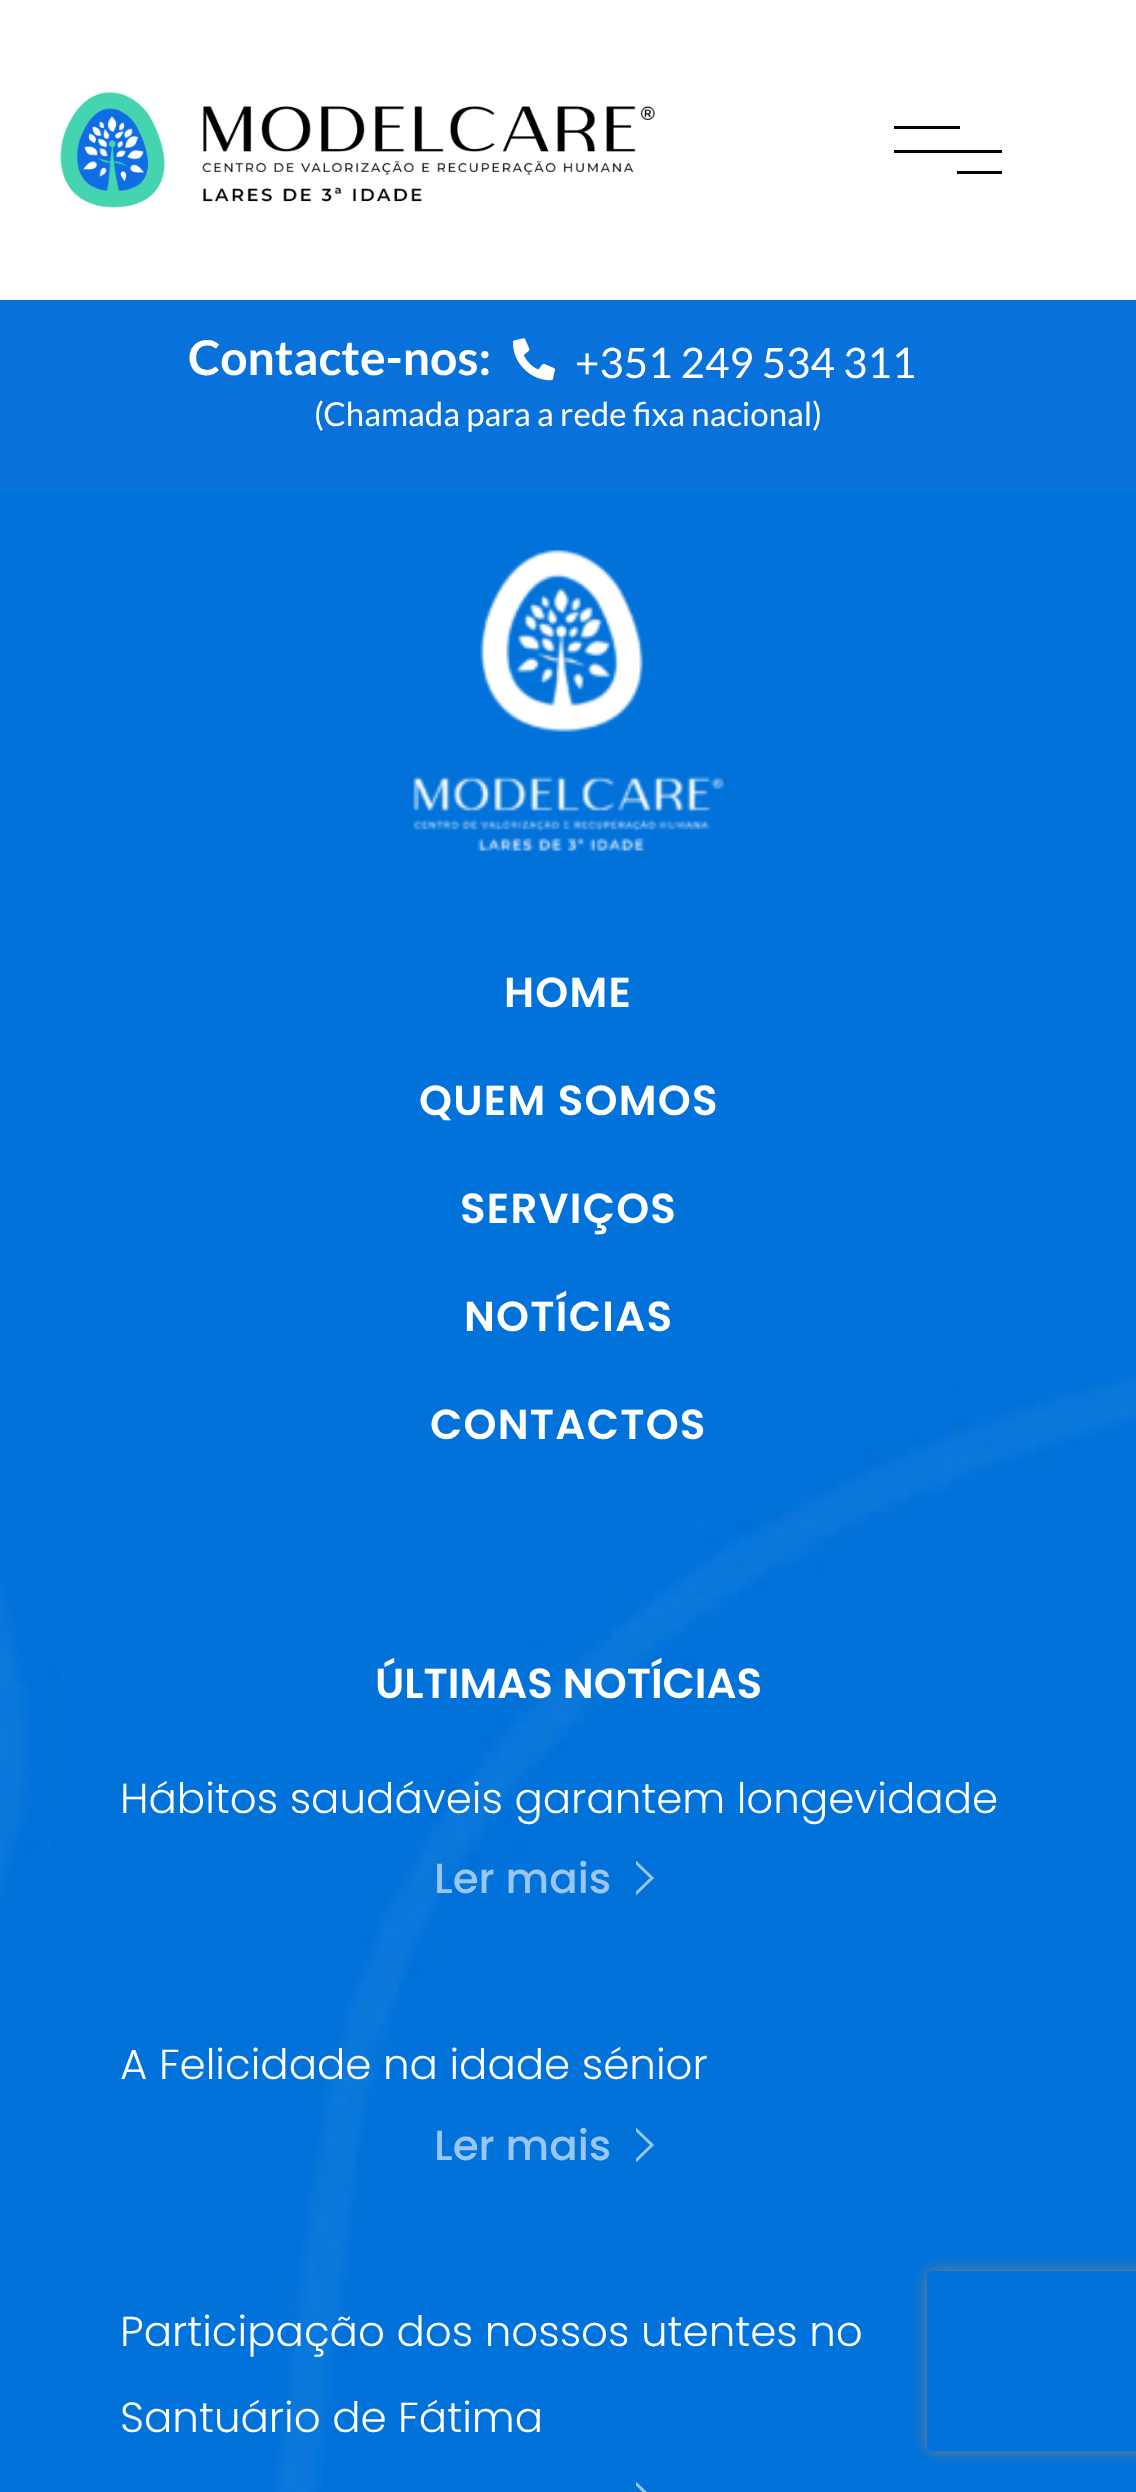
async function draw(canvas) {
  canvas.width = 1136
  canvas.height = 2492
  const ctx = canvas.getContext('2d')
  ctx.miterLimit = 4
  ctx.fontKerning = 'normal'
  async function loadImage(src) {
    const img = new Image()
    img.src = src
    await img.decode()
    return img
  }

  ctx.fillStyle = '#fff'
  ctx.fillRect(0, 0, 1136, 2492)
  ctx.drawImage(await loadImage('image0.png'), 60, 92, 595, 116)
  ctx.fillStyle = '#050505'
  ctx.fillRect(894, 126, 66, 3)
  ctx.fillRect(894, 150, 108, 3)
  ctx.fillRect(957, 171, 45, 3)
  ctx.fillStyle = '#0972da'
  ctx.fillRect(0, 300, 1136, 192)
  ctx.font = 'bold 48px Lato'
  ctx.fillStyle = '#fff'
  ctx.fillText('Contacte-nos:', 188, 375)
  ctx.drawImage(await loadImage('image1.png'), 513, 338, 42, 43)
  ctx.font = '42px Lato'
  ctx.fillText('+351 249 534 311', 575, 378)
  ctx.font = '33px Lato'
  ctx.fillText('(Chamada para a rede fixa nacional)', 314, 426)
  ctx.drawImage(await loadImage('image2.png'), 0, 492, 1136, 2000)
  ctx.drawImage(await loadImage('image3.png'), 413, 548, 311, 304)
  ctx.letterSpacing = '1.25px'
  ctx.font = '600 42px Poppins'
  ctx.fillText('HOME', 504, 1007)
  ctx.fillText('QUEM SOMOS', 419, 1115)
  ctx.fillText('SERVIÇOS', 460, 1223)
  ctx.fillText('NOTÍCIAS', 464, 1331)
  ctx.fillText('CONTACTOS', 430, 1439)
  ctx.letterSpacing = '0px'
  ctx.fillText('ÚLTIMAS NOTÍCIAS', 375, 1698)
  ctx.font = '300 42px Poppins'
  ctx.fillText('Hábitos saudáveis garantem longevidade', 120, 1813)
  ctx.font = '500 42px Poppins'
  ctx.fillStyle = '#9ac7f0'
  ctx.fillText('Ler mais', 434, 1893)
  ctx.save()
  ctx.beginPath()
  ctx.rect(636, 1860, 66, 36)
  ctx.clip()
  ctx.beginPath()
  ctx.moveTo(635.5, 1862)
  ctx.lineTo(652, 1878)
  ctx.lineTo(635.5, 1894)
  ctx.strokeStyle = '#99c7f0'
  ctx.lineWidth = 3
  ctx.stroke()
  ctx.restore()
  ctx.font = '300 42px Poppins'
  ctx.fillStyle = '#fff'
  ctx.fillText('A Felicidade na idade sénior', 120, 2079)
  ctx.font = '500 42px Poppins'
  ctx.fillStyle = '#9ac7f0'
  ctx.fillText('Ler mais', 434, 2160)
  ctx.save()
  ctx.beginPath()
  ctx.rect(636, 2127, 66, 36)
  ctx.clip()
  ctx.beginPath()
  ctx.moveTo(635.5, 2129)
  ctx.lineTo(652, 2145)
  ctx.lineTo(635.5, 2161)
  ctx.strokeStyle = '#99c7f0'
  ctx.lineWidth = 3
  ctx.stroke()
  ctx.restore()
  ctx.font = '300 42px Poppins'
  ctx.fillStyle = '#fff'
  ctx.fillText('Participação dos nossos utentes no', 120, 2346)
  ctx.fillText('Santuário de Fátima', 120, 2432)
  ctx.save()
  ctx.beginPath()
  ctx.rect(636, 2481, 66, 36)
  ctx.clip()
  ctx.beginPath()
  ctx.moveTo(635.5, 2483)
  ctx.lineTo(652, 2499)
  ctx.lineTo(635.5, 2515)
  ctx.strokeStyle = '#99c7f0'
  ctx.lineWidth = 3
  ctx.stroke()
  ctx.restore()
  ctx.save()
  ctx.beginPath()
  ctx.moveTo(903, 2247)
  ctx.lineTo(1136, 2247)
  ctx.lineTo(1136, 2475)
  ctx.lineTo(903, 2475)
  ctx.closePath()
  ctx.moveTo(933, 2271)
  ctx.lineTo(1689, 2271)
  ctx.bezierCurveTo(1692.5, 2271, 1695, 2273.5, 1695, 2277)
  ctx.lineTo(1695, 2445)
  ctx.bezierCurveTo(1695, 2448.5, 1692.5, 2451, 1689, 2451)
  ctx.lineTo(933, 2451)
  ctx.bezierCurveTo(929.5, 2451, 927, 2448.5, 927, 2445)
  ctx.lineTo(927, 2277)
  ctx.bezierCurveTo(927, 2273.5, 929.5, 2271, 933, 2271)
  ctx.closePath()
  ctx.clip('evenodd')
  ctx.fillStyle = '#808080'
  ctx.filter = 'blur(7.5px)'
  ctx.beginPath()
  ctx.roundRect(927, 2271, 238, 180, 6)
  ctx.fill()
  ctx.filter = 'none'
  ctx.restore()
}

draw(document.querySelector('canvas'))
